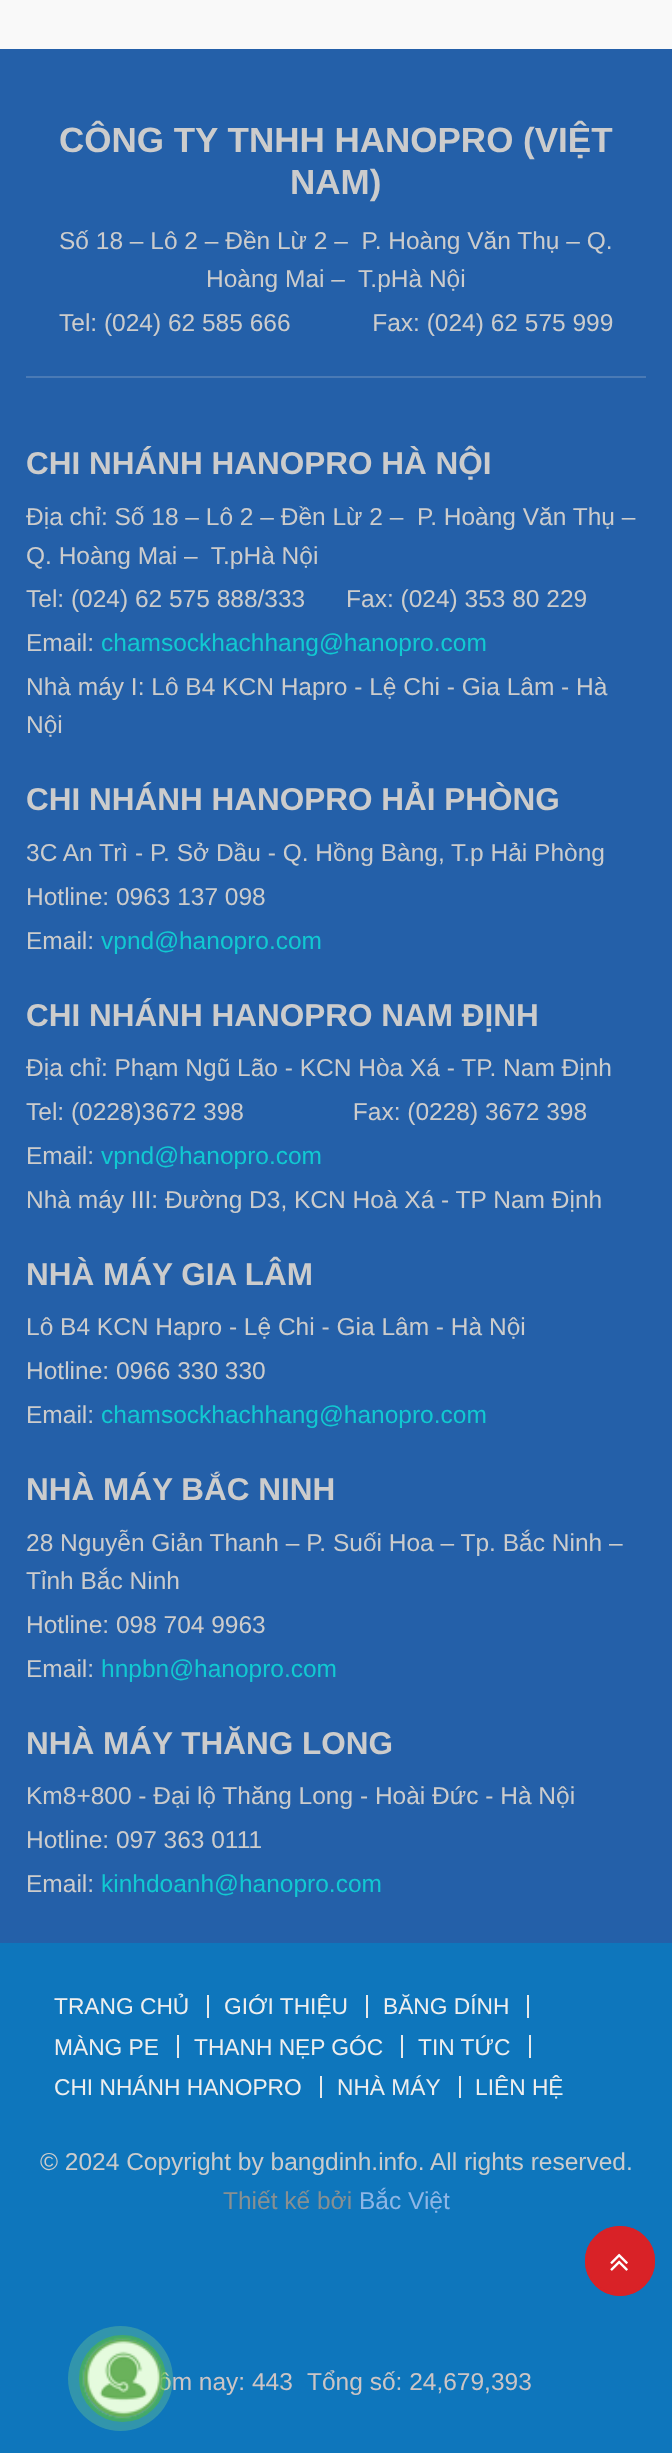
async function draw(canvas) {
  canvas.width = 672
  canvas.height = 2453
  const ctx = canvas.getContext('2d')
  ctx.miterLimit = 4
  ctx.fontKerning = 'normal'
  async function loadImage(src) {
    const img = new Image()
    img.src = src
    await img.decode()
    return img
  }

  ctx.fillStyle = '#f9f9f9'
  ctx.fillRect(0, 0, 672, 2453)
  ctx.fillStyle = '#2460a9'
  ctx.fillRect(0, 49, 672, 1894)
  ctx.font = 'bold 35px Liberation Sans'
  ctx.fillStyle = '#ccc'
  ctx.fillText('CÔNG TY TNHH HANOPRO (VIỆT', 59, 152)
  ctx.fillText('NAM)', 290, 194)
  ctx.font = '24.5px Liberation Sans'
  ctx.fillText('Số 18 – Lô 2 – Đền Lừ 2 –  P. Hoàng Văn Thụ – Q.', 59, 249)
  ctx.fillText('Hoàng Mai –  T.pHà Nội', 206, 287)
  ctx.fillText('Tel: (024) 62 585 666            Fax: (024) 62 575 999', 59, 331)
  ctx.fillStyle = '#4a7ab5'
  ctx.fillRect(26, 376, 620, 2)
  ctx.font = 'bold 31.5px Liberation Sans'
  ctx.fillStyle = '#ccc'
  ctx.fillText('CHI NHÁNH HANOPRO HÀ NỘI', 26, 474)
  ctx.font = '24.5px Liberation Sans'
  ctx.fillText('Địa chỉ: Số 18 – Lô 2 – Đền Lừ 2 –  P. Hoàng Văn Thụ –', 26, 525)
  ctx.fillText('Q. Hoàng Mai –  T.pHà Nội', 26, 564)
  ctx.fillText('Tel: (024) 62 575 888/333      Fax: (024) 353 80 229', 26, 607)
  ctx.fillText('Email:', 26, 651)
  ctx.fillStyle = '#11c9d2'
  ctx.fillText('chamsockhachhang@hanopro.com', 101, 651)
  ctx.fillStyle = '#ccc'
  ctx.fillText('Nhà máy I: Lô B4 KCN Hapro - Lệ Chi - Gia Lâm - Hà', 26, 695)
  ctx.fillText('Nội', 26, 733)
  ctx.font = 'bold 31.5px Liberation Sans'
  ctx.fillText('CHI NHÁNH HANOPRO HẢI PHÒNG', 26, 810)
  ctx.font = '24.5px Liberation Sans'
  ctx.fillText('3C An Trì - P. Sở Dầu - Q. Hồng Bàng, T.p Hải Phòng', 26, 861)
  ctx.fillText('Hotline: 0963 137 098', 26, 905)
  ctx.fillText('Email:', 26, 949)
  ctx.fillStyle = '#11c9d2'
  ctx.fillText('vpnd@hanopro.com', 101, 949)
  ctx.font = 'bold 31.5px Liberation Sans'
  ctx.fillStyle = '#ccc'
  ctx.fillText('CHI NHÁNH HANOPRO NAM ĐỊNH', 26, 1026)
  ctx.font = '24.5px Liberation Sans'
  ctx.fillText('Địa chỉ: Phạm Ngũ Lão - KCN Hòa Xá - TP. Nam Định', 26, 1076)
  ctx.fillText('Tel: (0228)3672 398                Fax: (0228) 3672 398', 26, 1120)
  ctx.fillText('Email:', 26, 1164)
  ctx.fillStyle = '#11c9d2'
  ctx.fillText('vpnd@hanopro.com', 101, 1164)
  ctx.fillStyle = '#ccc'
  ctx.fillText('Nhà máy III: Đường D3, KCN Hoà Xá - TP Nam Định', 26, 1208)
  ctx.font = 'bold 31.5px Liberation Sans'
  ctx.fillText('NHÀ MÁY GIA LÂM', 26, 1285)
  ctx.font = '24.5px Liberation Sans'
  ctx.fillText('Lô B4 KCN Hapro - Lệ Chi - Gia Lâm - Hà Nội', 26, 1335)
  ctx.fillText('Hotline: 0966 330 330', 26, 1379)
  ctx.fillText('Email:', 26, 1423)
  ctx.fillStyle = '#11c9d2'
  ctx.fillText('chamsockhachhang@hanopro.com', 101, 1423)
  ctx.font = 'bold 31.5px Liberation Sans'
  ctx.fillStyle = '#ccc'
  ctx.fillText('NHÀ MÁY BẮC NINH', 26, 1500)
  ctx.font = '24.5px Liberation Sans'
  ctx.fillText('28 Nguyễn Giản Thanh – P. Suối Hoa – Tp. Bắc Ninh –', 26, 1551)
  ctx.fillText('Tỉnh Bắc Ninh', 26, 1589)
  ctx.fillText('Hotline: 098 704 9963', 26, 1633)
  ctx.fillText('Email:', 26, 1677)
  ctx.fillStyle = '#11c9d2'
  ctx.fillText('hnpbn@hanopro.com', 101, 1677)
  ctx.font = 'bold 31.5px Liberation Sans'
  ctx.fillStyle = '#ccc'
  ctx.fillText('NHÀ MÁY THĂNG LONG', 26, 1754)
  ctx.font = '24.5px Liberation Sans'
  ctx.fillText('Km8+800 - Đại lộ Thăng Long - Hoài Đức - Hà Nội', 26, 1804)
  ctx.fillText('Hotline: 097 363 0111', 26, 1848)
  ctx.fillText('Email:', 26, 1892)
  ctx.fillStyle = '#11c9d2'
  ctx.fillText('kinhdoanh@hanopro.com', 101, 1892)
  ctx.fillStyle = '#0e76bc'
  ctx.fillRect(0, 1943, 672, 510)
  ctx.font = '22.75px Liberation Sans'
  ctx.fillStyle = '#eee'
  ctx.fillText('TRANG CHỦ', 54, 2014)
  ctx.fillStyle = '#e9e9e9'
  ctx.fillRect(207, 1995, 2, 23)
  ctx.fillStyle = '#eee'
  ctx.fillText('GIỚI THIỆU', 224, 2014)
  ctx.fillStyle = '#e9e9e9'
  ctx.fillRect(366, 1995, 2, 23)
  ctx.fillStyle = '#eee'
  ctx.fillText('BĂNG DÍNH', 383, 2014)
  ctx.fillStyle = '#e9e9e9'
  ctx.fillRect(527, 1995, 2, 23)
  ctx.fillStyle = '#eee'
  ctx.fillText('MÀNG PE', 54, 2055)
  ctx.fillStyle = '#e9e9e9'
  ctx.fillRect(177, 2035, 2, 23)
  ctx.fillStyle = '#eee'
  ctx.fillText('THANH NẸP GÓC', 194, 2055)
  ctx.fillStyle = '#e9e9e9'
  ctx.fillRect(401, 2035, 2, 23)
  ctx.fillStyle = '#eee'
  ctx.fillText('TIN TỨC', 418, 2055)
  ctx.fillStyle = '#e9e9e9'
  ctx.fillRect(529, 2035, 2, 23)
  ctx.fillStyle = '#eee'
  ctx.fillText('CHI NHÁNH HANOPRO', 54, 2095)
  ctx.fillStyle = '#e9e9e9'
  ctx.fillRect(320, 2076, 2, 22)
  ctx.fillStyle = '#eee'
  ctx.fillText('NHÀ MÁY', 337, 2095)
  ctx.fillStyle = '#e9e9e9'
  ctx.fillRect(459, 2076, 2, 22)
  ctx.fillStyle = '#eee'
  ctx.fillText('LIÊN HỆ', 475, 2095)
  ctx.font = '24.5px Liberation Sans'
  ctx.fillStyle = '#ccc'
  ctx.fillText('© 2024 Copyright by bangdinh.info. All rights reserved.', 40, 2170)
  ctx.fillStyle = '#889092'
  ctx.fillText('Thiết kế bởi', 223, 2209)
  ctx.fillStyle = '#8eb6e6'
  ctx.fillText('Bắc Việt', 359, 2209)
  ctx.fillStyle = '#ccc5c5'
  ctx.fillText('ôm nay: 443', 158, 2390)
  ctx.fillText('Tổng số: 24,679,393', 307, 2390)
  ctx.beginPath()
  ctx.arc(620, 2261, 34, 0, 2 * Math.PI)
  ctx.strokeStyle = '#d92227'
  ctx.lineWidth = 2
  ctx.stroke()
  ctx.drawImage(await loadImage('image0.png'), 82, 2337, 82, 82)
  ctx.beginPath()
  ctx.arc(122.5, 2378.5, 41.5, 0, 2 * Math.PI)
  ctx.strokeStyle = '#3aac0b80'
  ctx.lineWidth = 4
  ctx.stroke()
  ctx.fillStyle = '#9af18042'
  ctx.beginPath()
  ctx.arc(120.5, 2378.5, 52.5, 0, 2 * Math.PI)
  ctx.fill()
  ctx.fillStyle = '#d92227'
  ctx.beginPath()
  ctx.arc(620, 2261, 34, 0, 2 * Math.PI)
  ctx.fill()
  ctx.strokeStyle = '#d92227'
  ctx.lineWidth = 2
  ctx.stroke()
  ctx.drawImage(await loadImage('image1.png'), 610, 2253, 18, 18)
}

draw(document.querySelector('canvas'))
